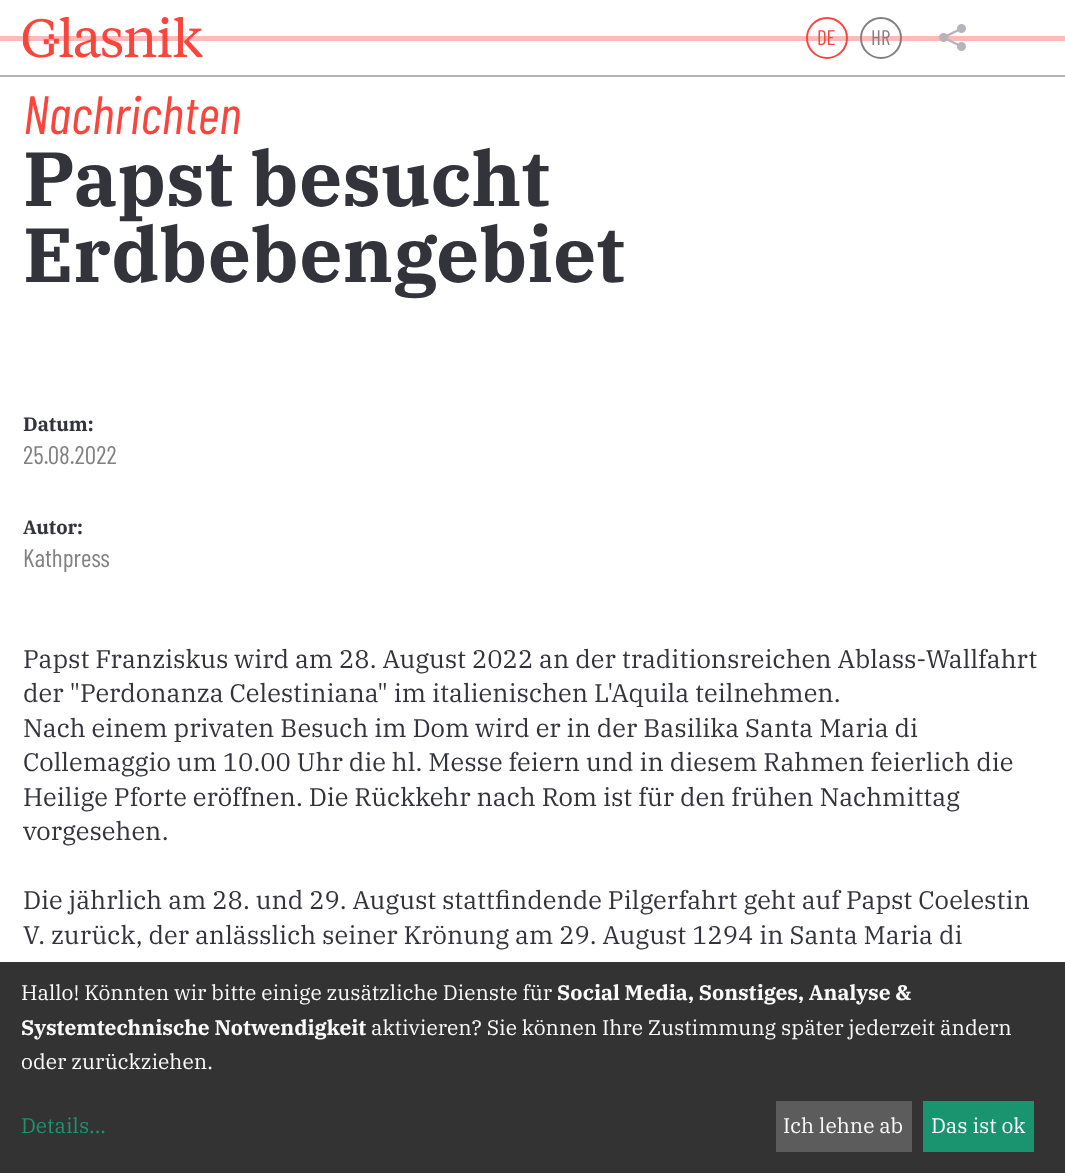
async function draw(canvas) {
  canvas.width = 1065
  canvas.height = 1173
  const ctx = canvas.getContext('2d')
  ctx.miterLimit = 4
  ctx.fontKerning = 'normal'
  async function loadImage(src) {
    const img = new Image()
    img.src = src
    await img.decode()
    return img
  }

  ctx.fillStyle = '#fff'
  ctx.fillRect(0, 0, 1065, 1173)
  ctx.fillStyle = '#b4b4ba'
  ctx.fillRect(0, 75, 1065, 2)
  ctx.fillStyle = '#fdbab7'
  ctx.fillRect(0, 36, 1065, 5)
  ctx.drawImage(await loadImage('image0.png'), 23, 17, 180, 41)
  ctx.beginPath()
  ctx.arc(827, 38, 20, 0, 2 * Math.PI)
  ctx.strokeStyle = '#f9453c'
  ctx.lineWidth = 2
  ctx.stroke()
  ctx.font = '21px Barlow Condensed'
  ctx.fillStyle = '#f9453c'
  ctx.fillText('DE', 817, 45)
  ctx.beginPath()
  ctx.arc(881, 38, 20, 0, 2 * Math.PI)
  ctx.strokeStyle = '#818184'
  ctx.stroke()
  ctx.fillStyle = '#818184'
  ctx.fillText('HR', 871, 45)
  ctx.drawImage(await loadImage('image1.png'), 939, 24, 27, 27)
  ctx.font = 'italic 54px Barlow Condensed'
  ctx.fillStyle = '#f9453c'
  ctx.fillText('Nachrichten', 23, 134)
  ctx.font = 'bold 76.5px IBM Plex Serif'
  ctx.fillStyle = '#33333c'
  ctx.fillText('Papst besucht', 23, 206)
  ctx.fillText('Erdbebengebiet', 23, 282)
  ctx.font = 'bold 19.5px IBM Plex Serif'
  ctx.fillText('Datum:', 23, 431)
  ctx.font = '25.5px Barlow Condensed'
  ctx.fillStyle = '#818184'
  ctx.fillText('25.08.2022', 23, 464)
  ctx.font = 'bold 19.5px IBM Plex Serif'
  ctx.fillStyle = '#33333c'
  ctx.fillText('Autor:', 23, 534)
  ctx.font = '25.5px Barlow Condensed'
  ctx.fillStyle = '#818184'
  ctx.fillText('Kathpress', 23, 567)
  ctx.font = '25.5px IBM Plex Serif'
  ctx.fillStyle = '#33333c'
  ctx.fillText('Papst Franziskus wird am 28. August 2022 an der traditionsreichen Ablass-Wallfahrt', 23, 668)
  ctx.fillText('der "Perdonanza Celestiniana" im italienischen L\'Aquila teilnehmen.', 23, 702)
  ctx.fillText('Nach einem privaten Besuch im Dom wird er in der Basilika Santa Maria di', 23, 737)
  ctx.fillText('Collemaggio um 10.00 Uhr die hl. Messe feiern und in diesem Rahmen feierlich die', 23, 771)
  ctx.fillText('Heilige Pforte eröffnen. Die Rückkehr nach Rom ist für den frühen Nachmittag', 23, 806)
  ctx.fillText('vorgesehen.', 23, 840)
  ctx.fillText('Die jährlich am 28. und 29. August stattfindende Pilgerfahrt geht auf Papst Coelestin', 23, 909)
  ctx.fillText('V. zurück, der anlässlich seiner Krönung am 29. August 1294 in Santa Maria di', 23, 944)
  ctx.fillStyle = '#333'
  ctx.fillRect(0, 962, 1065, 211)
  ctx.font = '21px IBM Plex Serif'
  ctx.fillStyle = '#fafafa'
  ctx.fillText('Hallo! Könnten wir bitte einige zusätzliche Dienste für', 21, 1000)
  ctx.font = 'bold 21px IBM Plex Serif'
  ctx.fillText('Social Media, Sonstiges, Analyse &', 557, 1000)
  ctx.fillText('Systemtechnische Notwendigkeit', 21, 1035)
  ctx.font = '21px IBM Plex Serif'
  ctx.fillText('aktivieren? Sie können Ihre Zustimmung später jederzeit ändern', 371, 1035)
  ctx.fillText('oder zurückziehen.', 21, 1069)
  ctx.fillStyle = '#1a936f'
  ctx.fillText('Details', 21, 1133)
  ctx.fillText('...', 89, 1133)
  ctx.fillStyle = '#5c5c5c'
  ctx.fillRect(776, 1101, 136, 51)
  ctx.fillStyle = '#fafafa'
  ctx.fillText('Ich lehne ab', 783, 1133)
  ctx.fillStyle = '#1a936f'
  ctx.fillRect(923, 1101, 111, 51)
  ctx.fillStyle = '#fafafa'
  ctx.fillText('Das ist ok', 931, 1133)
}

draw(document.querySelector('canvas'))
